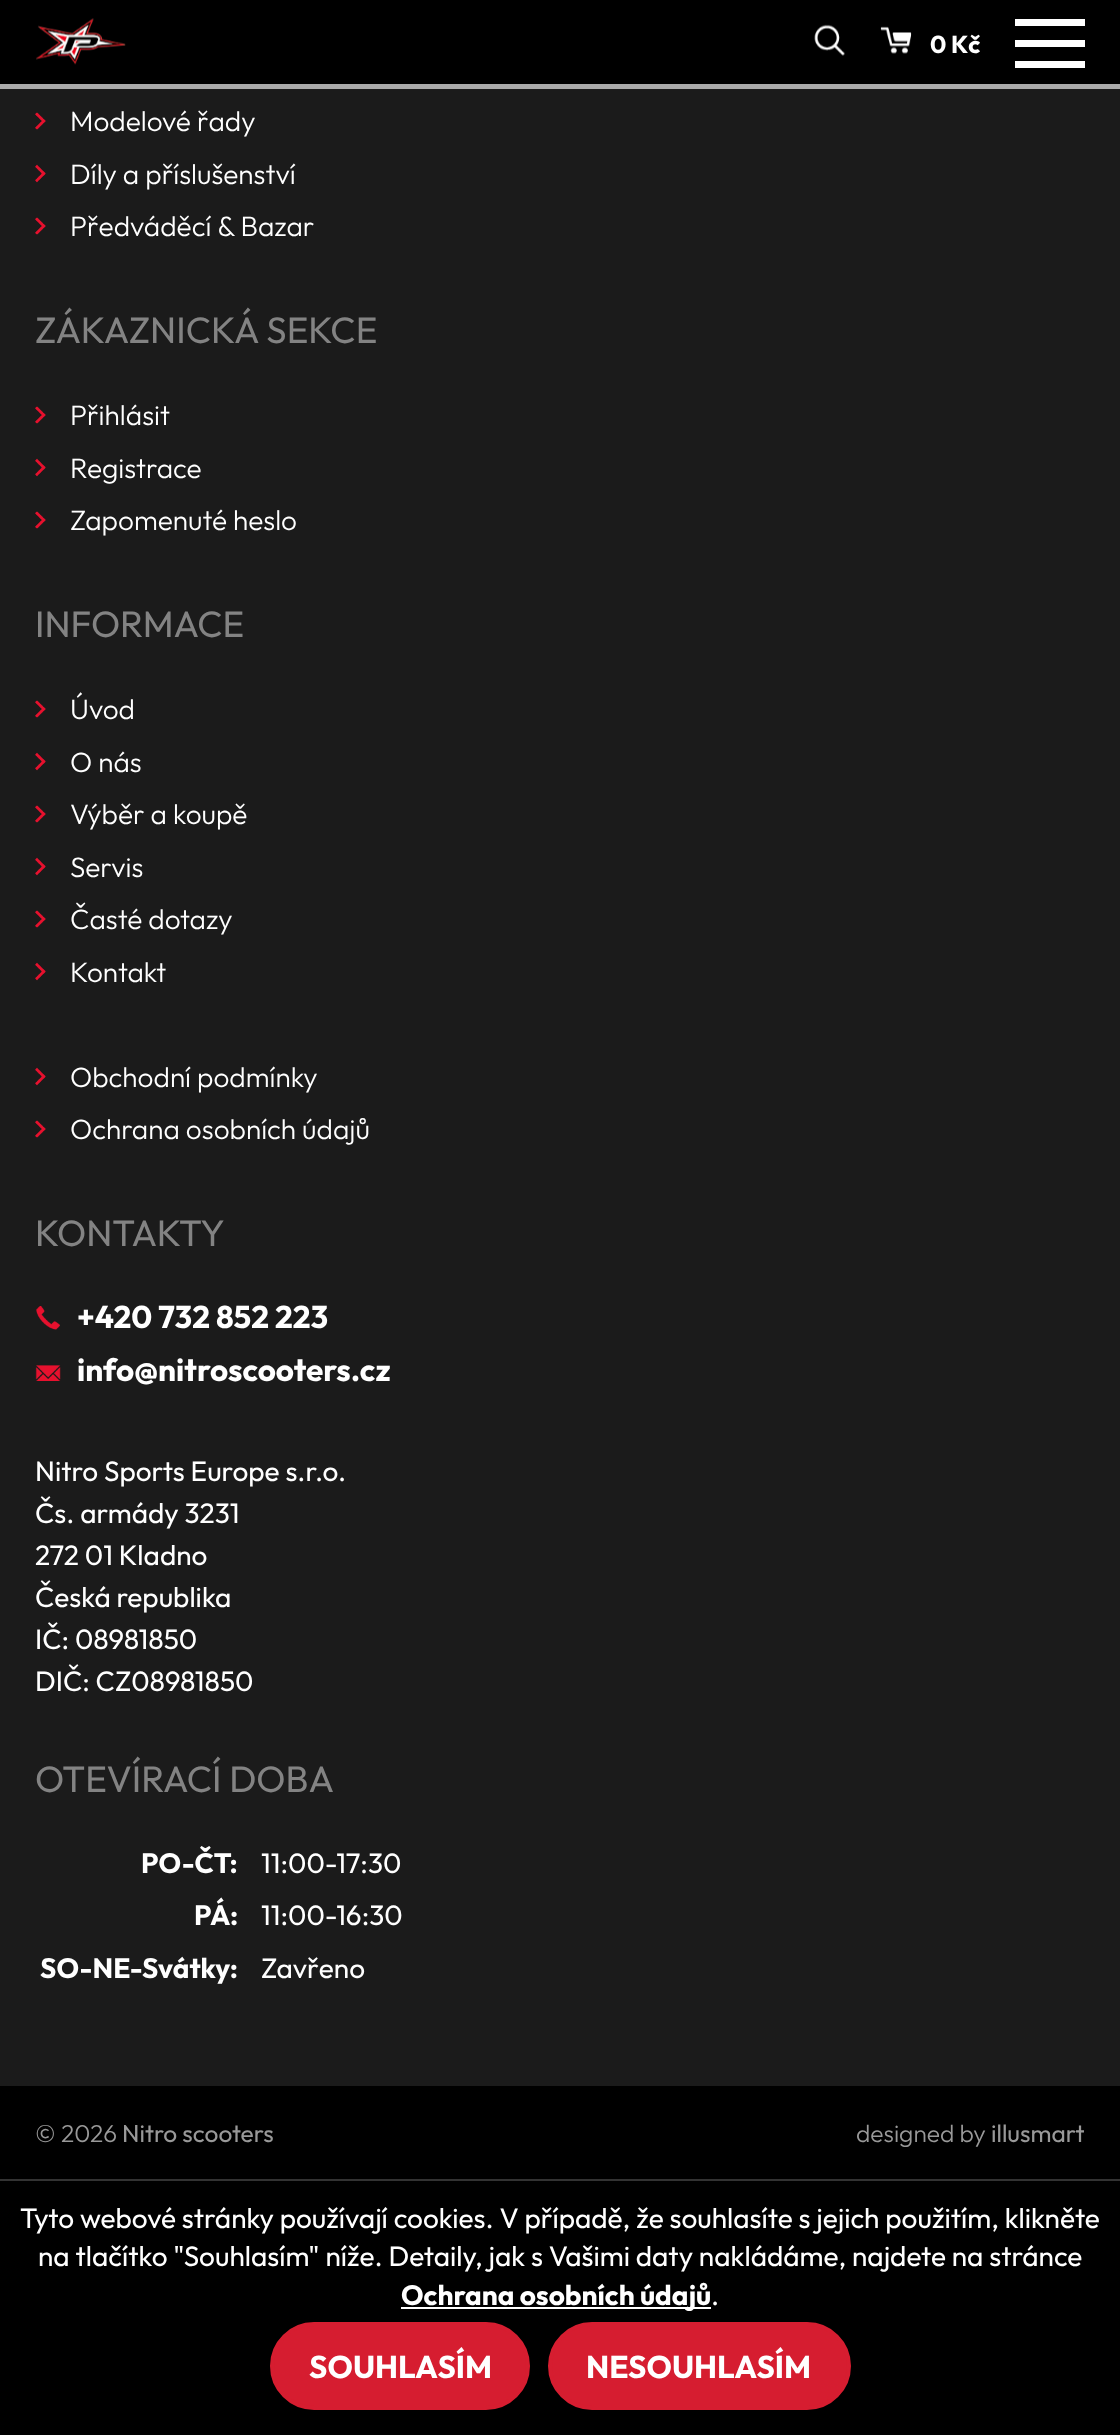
async function draw(canvas) {
  canvas.width = 1120
  canvas.height = 2435
  const ctx = canvas.getContext('2d')
  ctx.miterLimit = 4
  ctx.fontKerning = 'normal'
  async function loadImage(src) {
    const img = new Image()
    img.src = src
    await img.decode()
    return img
  }

  ctx.fillStyle = '#1b1b1b'
  ctx.fillRect(0, 0, 1120, 2435)
  ctx.fillStyle = '#000'
  ctx.fillRect(0, 0, 1120, 84)
  ctx.fillStyle = '#aaa'
  ctx.fillRect(0, 84, 1120, 5)
  ctx.drawImage(await loadImage('image0.png'), 36, 18, 90, 47)
  ctx.drawImage(await loadImage('image1.png'), 814, 24, 31, 32)
  ctx.drawImage(await loadImage('image2.png'), 880, 26, 32, 28)
  ctx.font = 'bold 24.5px Outfit'
  ctx.fillStyle = '#fff'
  ctx.fillText('0 Kč', 930, 53)
  ctx.fillRect(1015, 19, 70, 7)
  ctx.fillRect(1015, 40, 70, 7)
  ctx.fillRect(1015, 61, 70, 7)
  ctx.drawImage(await loadImage('image3.png'), 35, 112, 11, 18)
  ctx.font = '300 28px Outfit'
  ctx.fillText('Modelové řady', 70, 131)
  ctx.drawImage(await loadImage('image4.png'), 35, 164, 11, 19)
  ctx.fillText('Díly a příslušenství', 70, 184)
  ctx.drawImage(await loadImage('image3.png'), 35, 217, 11, 18)
  ctx.fillText('Předváděcí & Bazar', 70, 236)
  ctx.font = '36.75px Outfit'
  ctx.fillStyle = '#838383'
  ctx.fillText('ZÁKAZNICKÁ SEKCE', 35, 343)
  ctx.drawImage(await loadImage('image3.png'), 35, 406, 11, 18)
  ctx.font = '300 28px Outfit'
  ctx.fillStyle = '#fff'
  ctx.fillText('Přihlásit', 70, 425)
  ctx.drawImage(await loadImage('image4.png'), 35, 458, 11, 19)
  ctx.fillText('Registrace', 70, 478)
  ctx.drawImage(await loadImage('image3.png'), 35, 511, 11, 18)
  ctx.fillText('Zapomenuté heslo', 70, 530)
  ctx.font = '36.75px Outfit'
  ctx.fillStyle = '#838383'
  ctx.fillText('INFORMACE', 35, 637)
  ctx.drawImage(await loadImage('image3.png'), 35, 700, 11, 18)
  ctx.font = '300 28px Outfit'
  ctx.fillStyle = '#fff'
  ctx.fillText('Úvod', 70, 719)
  ctx.drawImage(await loadImage('image5.png'), 35, 752, 11, 19)
  ctx.fillText('O nás', 70, 772)
  ctx.drawImage(await loadImage('image3.png'), 35, 805, 11, 18)
  ctx.fillText('Výběr a koupě', 70, 824)
  ctx.drawImage(await loadImage('image4.png'), 35, 857, 11, 19)
  ctx.fillText('Servis', 70, 877)
  ctx.drawImage(await loadImage('image3.png'), 35, 910, 11, 18)
  ctx.fillText('Časté dotazy', 70, 929)
  ctx.drawImage(await loadImage('image4.png'), 35, 962, 11, 19)
  ctx.fillText('Kontakt', 70, 982)
  ctx.drawImage(await loadImage('image5.png'), 35, 1067, 11, 19)
  ctx.fillText('Obchodní podmínky', 70, 1087)
  ctx.drawImage(await loadImage('image3.png'), 35, 1120, 11, 18)
  ctx.fillText('Ochrana osobních údajů', 70, 1139)
  ctx.font = '36.75px Outfit'
  ctx.fillStyle = '#838383'
  ctx.fillText('KONTAKTY', 35, 1246)
  ctx.drawImage(await loadImage('image6.png'), 36, 1306, 24, 24)
  ctx.font = 'bold 31.5px Outfit'
  ctx.fillStyle = '#fff'
  ctx.fillText('+420 732 852 223', 77, 1328)
  ctx.drawImage(await loadImage('image7.png'), 35, 1365, 26, 16)
  ctx.fillText('info@nitroscooters.cz', 77, 1381)
  ctx.font = '28px Outfit'
  ctx.fillText('Nitro Sports Europe s.r.o.', 35, 1481)
  ctx.fillText('Čs. armády 3231', 35, 1523)
  ctx.fillText('272 01 Kladno', 35, 1565)
  ctx.fillText('Česká republika', 35, 1607)
  ctx.fillText('IČ: 08981850', 35, 1649)
  ctx.fillText('DIČ: CZ08981850', 35, 1691)
  ctx.font = '36.75px Outfit'
  ctx.fillStyle = '#838383'
  ctx.fillText('OTEVÍRACÍ DOBA', 35, 1792)
  ctx.font = 'bold 28px Outfit'
  ctx.fillStyle = '#fff'
  ctx.fillText('PO-ČT:', 141, 1873)
  ctx.font = '28px Outfit'
  ctx.fillText('11:00-17:30', 261, 1873)
  ctx.font = 'bold 28px Outfit'
  ctx.fillText('PÁ:', 194, 1925)
  ctx.font = '28px Outfit'
  ctx.fillText('11:00-16:30', 261, 1925)
  ctx.font = 'bold 28px Outfit'
  ctx.fillText('SO-NE-Svátky:', 40, 1978)
  ctx.font = '28px Outfit'
  ctx.fillText('Zavřeno', 261, 1978)
  ctx.fillStyle = '#000'
  ctx.fillRect(0, 2086, 1120, 93)
  ctx.font = '300 24.5px Outfit'
  ctx.fillStyle = '#999'
  ctx.fillText('© 2026', 35, 2142)
  ctx.font = '24.5px Outfit'
  ctx.fillText('Nitro scooters', 122, 2142)
  ctx.font = '300 24.5px Outfit'
  ctx.fillText('designed by', 856, 2142)
  ctx.font = '24.5px Outfit'
  ctx.fillText('illusmart', 991, 2142)
  ctx.fillStyle = '#000'
  ctx.fillRect(0, 2181, 1120, 254)
  ctx.fillStyle = '#333'
  ctx.fillRect(0, 2179, 1120, 2)
  ctx.font = '28px Outfit'
  ctx.fillStyle = '#fff'
  ctx.fillText('Tyto webové stránky používají cookies. V případě, že souhlasíte s jejich použitím, klikněte', 20, 2228)
  ctx.fillText('na tlačítko "Souhlasím" níže. Detaily, jak s Vašimi daty nakládáme, najdete na stránce', 38, 2266)
  ctx.fillRect(401, 2307, 310, 2)
  ctx.font = 'bold 28px Outfit'
  ctx.fillText('Ochrana osobních údajů', 401, 2305)
  ctx.font = '28px Outfit'
  ctx.fillText('.', 711, 2305)
  ctx.fillStyle = '#d61d30'
  ctx.beginPath()
  ctx.roundRect(272, 2324, 256, 84, 42)
  ctx.fill()
  ctx.strokeStyle = '#d61d30'
  ctx.lineWidth = 4
  ctx.stroke()
  ctx.font = 'bold 31.5px Outfit'
  ctx.fillStyle = '#fff'
  ctx.fillText('SOUHLASÍM', 309, 2378)
  ctx.fillStyle = '#d61d30'
  ctx.beginPath()
  ctx.roundRect(550, 2324, 299, 84, 42)
  ctx.fill()
  ctx.stroke()
  ctx.fillStyle = '#fff'
  ctx.fillText('NESOUHLASÍM', 586, 2378)
}

draw(document.querySelector('canvas'))
